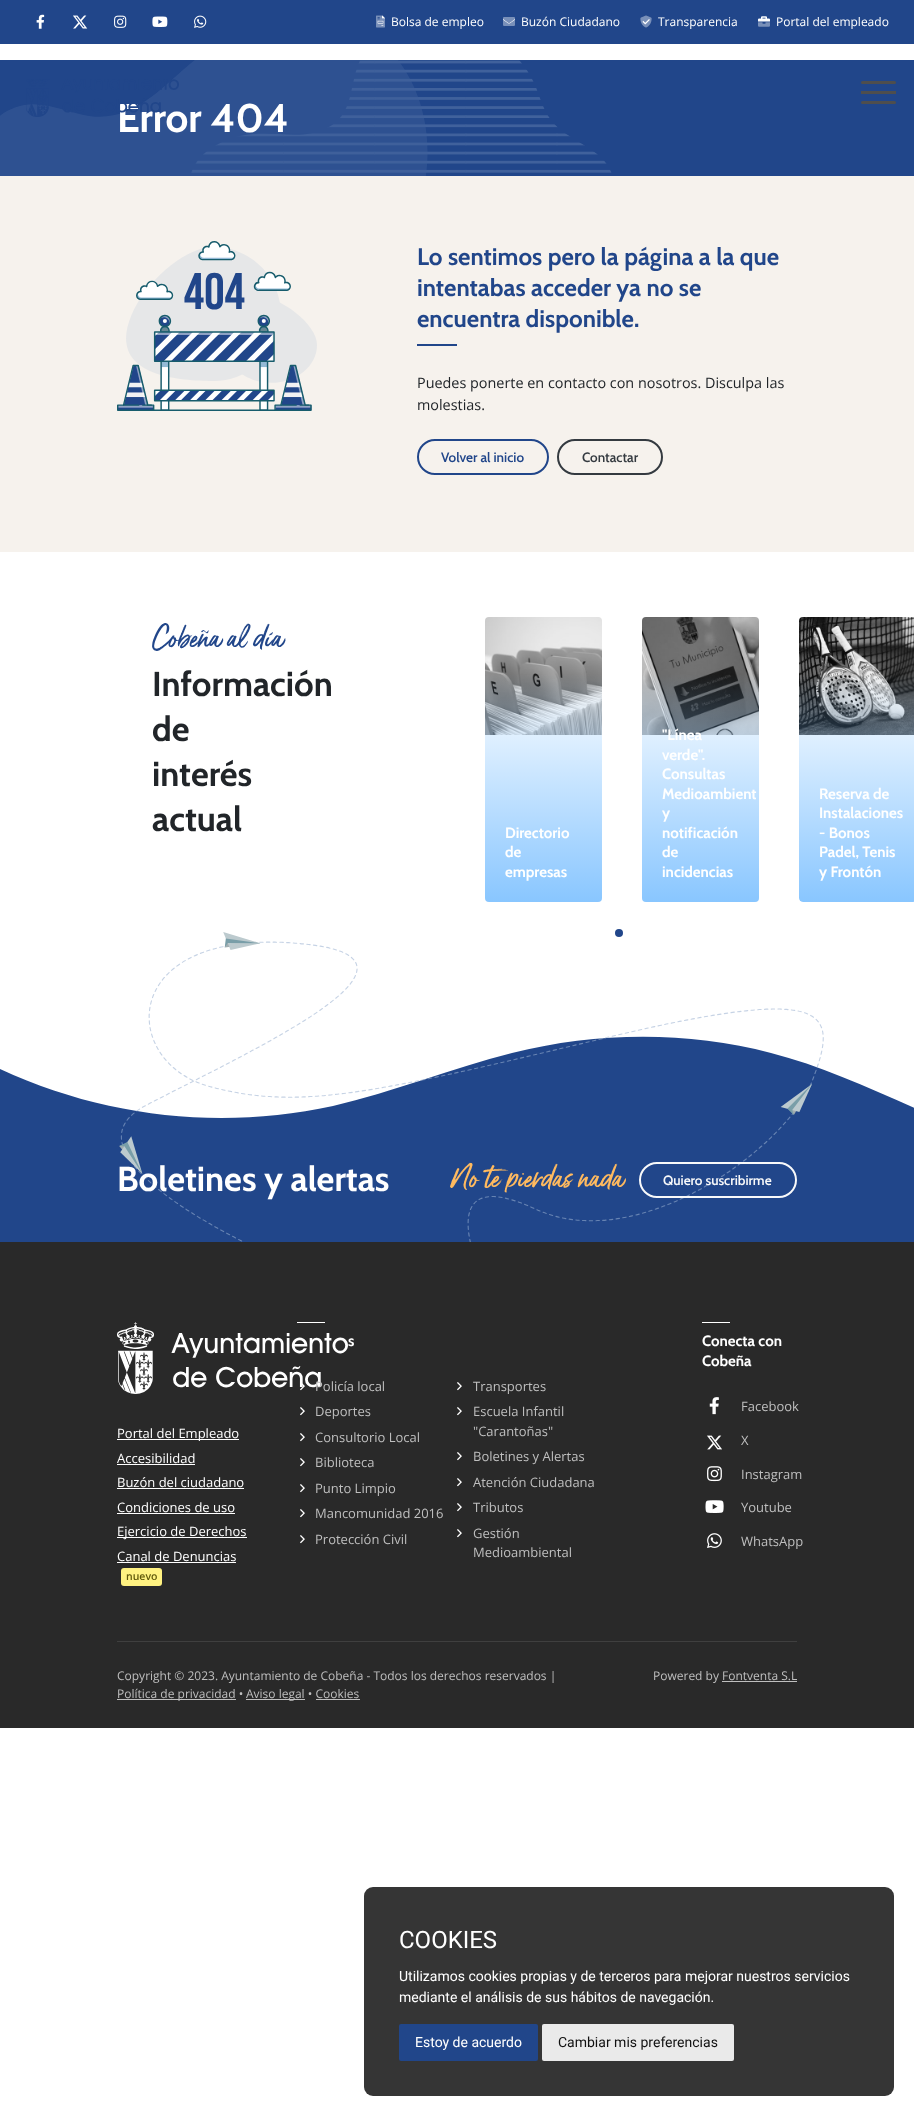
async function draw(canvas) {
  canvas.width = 914
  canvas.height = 2116
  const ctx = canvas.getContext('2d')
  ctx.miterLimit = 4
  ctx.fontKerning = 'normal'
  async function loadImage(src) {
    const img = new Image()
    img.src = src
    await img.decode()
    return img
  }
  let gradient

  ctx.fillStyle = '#fff'
  ctx.fillRect(0, 0, 914, 2116)
  ctx.fillStyle = '#21468a'
  ctx.fillRect(0, 0, 914, 44)
  ctx.drawImage(await loadImage('image0.png'), 36, 14, 9, 15)
  ctx.drawImage(await loadImage('image1.png'), 73, 15, 15, 14)
  ctx.drawImage(await loadImage('image2.png'), 114, 15, 13, 13)
  ctx.drawImage(await loadImage('image3.png'), 152, 16, 16, 11)
  ctx.drawImage(await loadImage('image4.png'), 194, 15, 13, 13)
  ctx.drawImage(await loadImage('image6.png'), 377, 15, 8, 11)
  ctx.drawImage(await loadImage('image5.png'), 376, 15, 9, 13)
  ctx.font = '12px Open Sans'
  ctx.fillStyle = '#fff'
  ctx.fillText('Bolsa de empleo', 391, 26)
  ctx.drawImage(await loadImage('image8.png'), 503, 18, 12, 6)
  ctx.drawImage(await loadImage('image7.png'), 503, 17, 12, 9)
  ctx.fillText('Buzón Ciudadano', 521, 26)
  ctx.drawImage(await loadImage('image10.png'), 642, 19, 8, 6)
  ctx.drawImage(await loadImage('image9.png'), 640, 15, 12, 13)
  ctx.fillText('Transparencia', 658, 26)
  ctx.drawImage(await loadImage('image11.png'), 758, 16, 12, 6)
  ctx.drawImage(await loadImage('image12.png'), 758, 22, 12, 5)
  ctx.fillText('Portal del empleado', 776, 26)
  ctx.fillStyle = '#21468a'
  ctx.fillRect(0, 60, 914, 116)
  ctx.drawImage(await loadImage('image14.png'), 0, 60, 612, 116)
  ctx.font = 'bold 40px Cabin'
  ctx.fillStyle = '#fff'
  ctx.fillText('Error 404', 117, 132)
  ctx.drawImage(await loadImage('image13.png'), 26, 79, 153, 38)
  ctx.fillStyle = '#4e4e4e'
  ctx.fillRect(861, 91, 35, 3)
  ctx.beginPath()
  ctx.roundRect(861, 81, 35, 3, 1.5)
  ctx.fill()
  ctx.beginPath()
  ctx.roundRect(861, 101, 35, 3, 1.5)
  ctx.fill()
  ctx.fillStyle = '#f6f2ed'
  ctx.fillRect(0, 176, 914, 376)
  ctx.drawImage(await loadImage('image15.png'), 117, 241, 200, 170)
  ctx.font = 'bold 24px Cabin'
  ctx.fillStyle = '#21468a'
  ctx.fillText('Lo sentimos pero la página a la que', 417, 265)
  ctx.fillText('intentabas acceder ya no se', 417, 296)
  ctx.fillText('encuentra disponible.', 417, 327)
  ctx.fillRect(417, 344, 40, 2)
  ctx.font = '14.4px Open Sans'
  ctx.fillStyle = '#212529'
  ctx.fillText('Puedes ponerte en contacto con nosotros. Disculpa las', 417, 388)
  ctx.fillText('molestias.', 417, 410)
  ctx.beginPath()
  ctx.roundRect(418, 440, 130, 34, 17)
  ctx.strokeStyle = '#21468a'
  ctx.lineWidth = 2
  ctx.stroke()
  ctx.font = '600 13.5px Cabin'
  ctx.fillStyle = '#21468a'
  ctx.fillText('Volver al inicio', 441, 462)
  ctx.beginPath()
  ctx.roundRect(558, 440, 104, 34, 17)
  ctx.strokeStyle = '#343a40'
  ctx.stroke()
  ctx.fillStyle = '#343a40'
  ctx.fillText('Contactar', 582, 462)
  ctx.font = '30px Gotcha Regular'
  ctx.fillStyle = '#21468a'
  ctx.fillText('Cobeña al día', 152, 647)
  ctx.font = 'bold 34.5px Cabin'
  ctx.fillStyle = '#212529'
  ctx.fillText('Información', 152, 696)
  ctx.fillText('de', 152, 741)
  ctx.fillText('interés', 152, 786)
  ctx.fillText('actual', 152, 831)
  ctx.drawImage(await loadImage('image16.png'), 485, 617, 117, 118)
  gradient = ctx.createLinearGradient(544, 617, 544, 902)
  gradient.addColorStop(0.2, '#7cc0ff00')
  gradient.addColorStop(1, '#7cc0ffe6')
  ctx.fillStyle = gradient
  ctx.beginPath()
  ctx.roundRect(485, 617, 117, 285, 4)
  ctx.fill()
  ctx.font = 'bold 15px Cabin'
  ctx.fillStyle = '#fff'
  ctx.fillText('Directorio', 505, 838)
  ctx.fillText('de', 505, 857)
  ctx.fillText('empresas', 505, 877)
  ctx.drawImage(await loadImage('image17.png'), 642, 617, 117, 118)
  gradient = ctx.createLinearGradient(701, 617, 701, 902)
  gradient.addColorStop(0.2, '#7cc0ff00')
  gradient.addColorStop(1, '#7cc0ffe6')
  ctx.fillStyle = gradient
  ctx.beginPath()
  ctx.roundRect(642, 617, 117, 285, 4)
  ctx.fill()
  ctx.fillStyle = '#fff'
  ctx.fillText('"Línea', 662, 740)
  ctx.fillText('verde".', 662, 760)
  ctx.fillText('Consultas', 662, 779)
  ctx.fillText('Medioambient', 662, 799)
  ctx.fillText('y', 662, 818)
  ctx.fillText('notificación', 662, 838)
  ctx.fillText('de', 662, 857)
  ctx.fillText('incidencias', 662, 877)
  ctx.drawImage(await loadImage('image18.png'), 799, 617, 115, 118)
  ctx.save()
  ctx.beginPath()
  ctx.roundRect(799, 617, 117, 285, 4)
  ctx.clip()
  gradient = ctx.createLinearGradient(858, 617, 858, 902)
  gradient.addColorStop(0.2, '#7cc0ff00')
  gradient.addColorStop(1, '#7cc0ffe6')
  ctx.fillStyle = gradient
  ctx.beginPath()
  ctx.roundRect(799, 617, 115, 285, [4, 0, 0, 4])
  ctx.fill()
  ctx.restore()
  ctx.fillText('Reserva de', 819, 799)
  ctx.fillText('Instalaciones', 819, 818)
  ctx.fillText('- Bonos', 819, 838)
  ctx.fillText('Padel, Tenis', 819, 857)
  ctx.fillText('y Frontón', 819, 877)
  ctx.fillStyle = '#21468a'
  ctx.beginPath()
  ctx.arc(619, 933, 4, 0, 2 * Math.PI)
  ctx.fill()
  ctx.fillRect(0, 1185, 914, 57)
  ctx.beginPath()
  ctx.moveTo(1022, 1151)
  ctx.bezierCurveTo(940, 1125, 854, 1074, 771, 1053)
  ctx.bezierCurveTo(686, 1031, 597, 1032, 512, 1053)
  ctx.bezierCurveTo(452, 1068, 393, 1092, 333, 1106)
  ctx.bezierCurveTo(222, 1130, 106, 1118, 0, 1069)
  ctx.lineTo(0, 1185)
  ctx.lineTo(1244, 1185)
  ctx.lineTo(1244, 1155)
  ctx.bezierCurveTo(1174, 1184, 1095, 1174, 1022, 1151)
  ctx.closePath()
  ctx.fill()
  ctx.drawImage(await loadImage('image19.png'), 119, 932, 705, 310)
  ctx.font = 'bold 34.5px Cabin'
  ctx.fillStyle = '#fff'
  ctx.fillText('Boletines y alertas', 117, 1191)
  ctx.font = '30px Gotcha Regular'
  ctx.fillStyle = '#ffba5f'
  ctx.fillText('No te pierdas nada', 451, 1187)
  ctx.beginPath()
  ctx.roundRect(640, 1163, 156, 34, 17)
  ctx.strokeStyle = '#f8f9fa'
  ctx.stroke()
  ctx.font = '600 13.5px Cabin'
  ctx.fillStyle = '#f8f9fa'
  ctx.fillText('Quiero suscribirme', 663, 1185)
  ctx.fillStyle = '#292929'
  ctx.fillRect(0, 1242, 914, 486)
  ctx.drawImage(await loadImage('image20.png'), 117, 1322, 231, 72)
  ctx.fillStyle = '#fff'
  ctx.fillRect(117, 1439, 122, 1)
  ctx.font = '13px Open Sans'
  ctx.fillText('Portal del Empleado', 117, 1438)
  ctx.fillText('Accesibilidad', 117, 1463)
  ctx.fillRect(117, 1464, 78, 1)
  ctx.fillText('Buzón del ciudadano', 117, 1487)
  ctx.fillRect(117, 1488, 127, 1)
  ctx.fillText('Condiciones de uso', 117, 1512)
  ctx.fillRect(117, 1513, 118, 1)
  ctx.fillRect(117, 1537, 130, 1)
  ctx.fillText('Ejercicio de Derechos', 117, 1536)
  ctx.fillText('Canal de Denuncias', 117, 1561)
  ctx.fillRect(117, 1562, 119, 1)
  ctx.fillStyle = '#fff281'
  ctx.beginPath()
  ctx.roundRect(121, 1568, 41, 18, 3)
  ctx.fill()
  ctx.font = '600 10.5px Open Sans'
  ctx.fillStyle = '#60580a'
  ctx.fillText('nuevo', 126, 1580)
  ctx.fillStyle = '#fff'
  ctx.fillRect(297, 1322, 28, 1)
  ctx.font = 'bold 15px Cabin'
  ctx.fillText('s', 348, 1346)
  ctx.drawImage(await loadImage('image21.png'), 300, 1383, 5, 8)
  ctx.font = '13px Open Sans'
  ctx.fillStyle = '#bfbfbf'
  ctx.fillText('Policía local', 315, 1391)
  ctx.drawImage(await loadImage('image22.png'), 457, 1382, 5, 9)
  ctx.fillText('Transportes', 473, 1391)
  ctx.drawImage(await loadImage('image22.png'), 300, 1407, 5, 9)
  ctx.fillText('Deportes', 315, 1416)
  ctx.drawImage(await loadImage('image22.png'), 457, 1407, 5, 9)
  ctx.fillText('Escuela Infantil', 473, 1416)
  ctx.fillText('"Carantoñas"', 473, 1436)
  ctx.drawImage(await loadImage('image22.png'), 300, 1433, 5, 9)
  ctx.fillText('Consultorio Local', 315, 1442)
  ctx.drawImage(await loadImage('image22.png'), 300, 1458, 5, 9)
  ctx.fillText('Biblioteca', 315, 1467)
  ctx.drawImage(await loadImage('image22.png'), 457, 1452, 5, 9)
  ctx.fillText('Boletines y Alertas', 473, 1461)
  ctx.drawImage(await loadImage('image22.png'), 300, 1484, 5, 9)
  ctx.fillText('Punto Limpio', 315, 1493)
  ctx.drawImage(await loadImage('image22.png'), 457, 1478, 5, 9)
  ctx.fillText('Atención Ciudadana', 473, 1487)
  ctx.drawImage(await loadImage('image22.png'), 300, 1509, 5, 9)
  ctx.fillText('Mancomunidad 2016', 315, 1518)
  ctx.drawImage(await loadImage('image22.png'), 457, 1503, 5, 9)
  ctx.fillText('Tributos', 473, 1512)
  ctx.drawImage(await loadImage('image22.png'), 300, 1535, 5, 9)
  ctx.fillText('Protección Civil', 315, 1544)
  ctx.drawImage(await loadImage('image22.png'), 457, 1529, 5, 9)
  ctx.fillText('Gestión', 473, 1538)
  ctx.fillText('Medioambiental', 473, 1557)
  ctx.fillStyle = '#fff'
  ctx.fillRect(702, 1322, 28, 1)
  ctx.font = 'bold 15px Cabin'
  ctx.fillText('Conecta con', 702, 1346)
  ctx.fillText('Cobeña', 702, 1366)
  ctx.drawImage(await loadImage('image23.png'), 709, 1397, 10, 18)
  ctx.font = '13px Open Sans'
  ctx.fillStyle = '#bfbfbf'
  ctx.fillText('Facebook', 741, 1411)
  ctx.drawImage(await loadImage('image24.png'), 707, 1435, 15, 15)
  ctx.fillText('X', 741, 1445)
  ctx.drawImage(await loadImage('image25.png'), 707, 1466, 15, 16)
  ctx.fillText('Instagram', 741, 1479)
  ctx.drawImage(await loadImage('image26.png'), 705, 1500, 19, 13)
  ctx.fillText('Youtube', 741, 1512)
  ctx.drawImage(await loadImage('image27.png'), 707, 1533, 15, 15)
  ctx.fillText('WhatsApp', 741, 1546)
  ctx.fillStyle = '#3f3f3f'
  ctx.fillRect(117, 1641, 680, 1)
  ctx.font = '12px Open Sans'
  ctx.fillStyle = '#bfbfbf'
  ctx.fillText('Copyright © 2023. Ayuntamiento de Cobeña - Todos los derechos reservados |', 117, 1680)
  ctx.fillRect(117, 1699, 119, 1)
  ctx.fillText('Política de privacidad •', 117, 1698)
  ctx.fillRect(246, 1699, 59, 1)
  ctx.fillText('Aviso legal • Cookies', 246, 1698)
  ctx.fillRect(316, 1699, 44, 1)
  ctx.fillText('Powered by Fontventa S.L', 653, 1680)
  ctx.fillRect(722, 1681, 75, 1)
  ctx.fillStyle = '#353535'
  ctx.beginPath()
  ctx.roundRect(364, 1887, 530, 209, 9)
  ctx.fill()
  ctx.font = '24px Roboto'
  ctx.fillStyle = '#fff'
  ctx.fillText('COOKIES', 399, 1948)
  ctx.font = '14px Roboto'
  ctx.fillText('Utilizamos cookies propias y de terceros para mejorar nuestros servicios', 399, 1981)
  ctx.fillText('mediante el análisis de sus hábitos de navegación.', 399, 2002)
  ctx.fillStyle = '#21468a'
  ctx.beginPath()
  ctx.roundRect(399, 2024, 139, 37, 2)
  ctx.fill()
  ctx.fillStyle = '#fff'
  ctx.fillText('Estoy de acuerdo', 415, 2047)
  ctx.fillStyle = '#eaeaea'
  ctx.beginPath()
  ctx.roundRect(542, 2024, 192, 37, 2)
  ctx.fill()
  ctx.fillStyle = '#111'
  ctx.fillText('Cambiar mis preferencias', 558, 2047)
}

draw(document.querySelector('canvas'))
